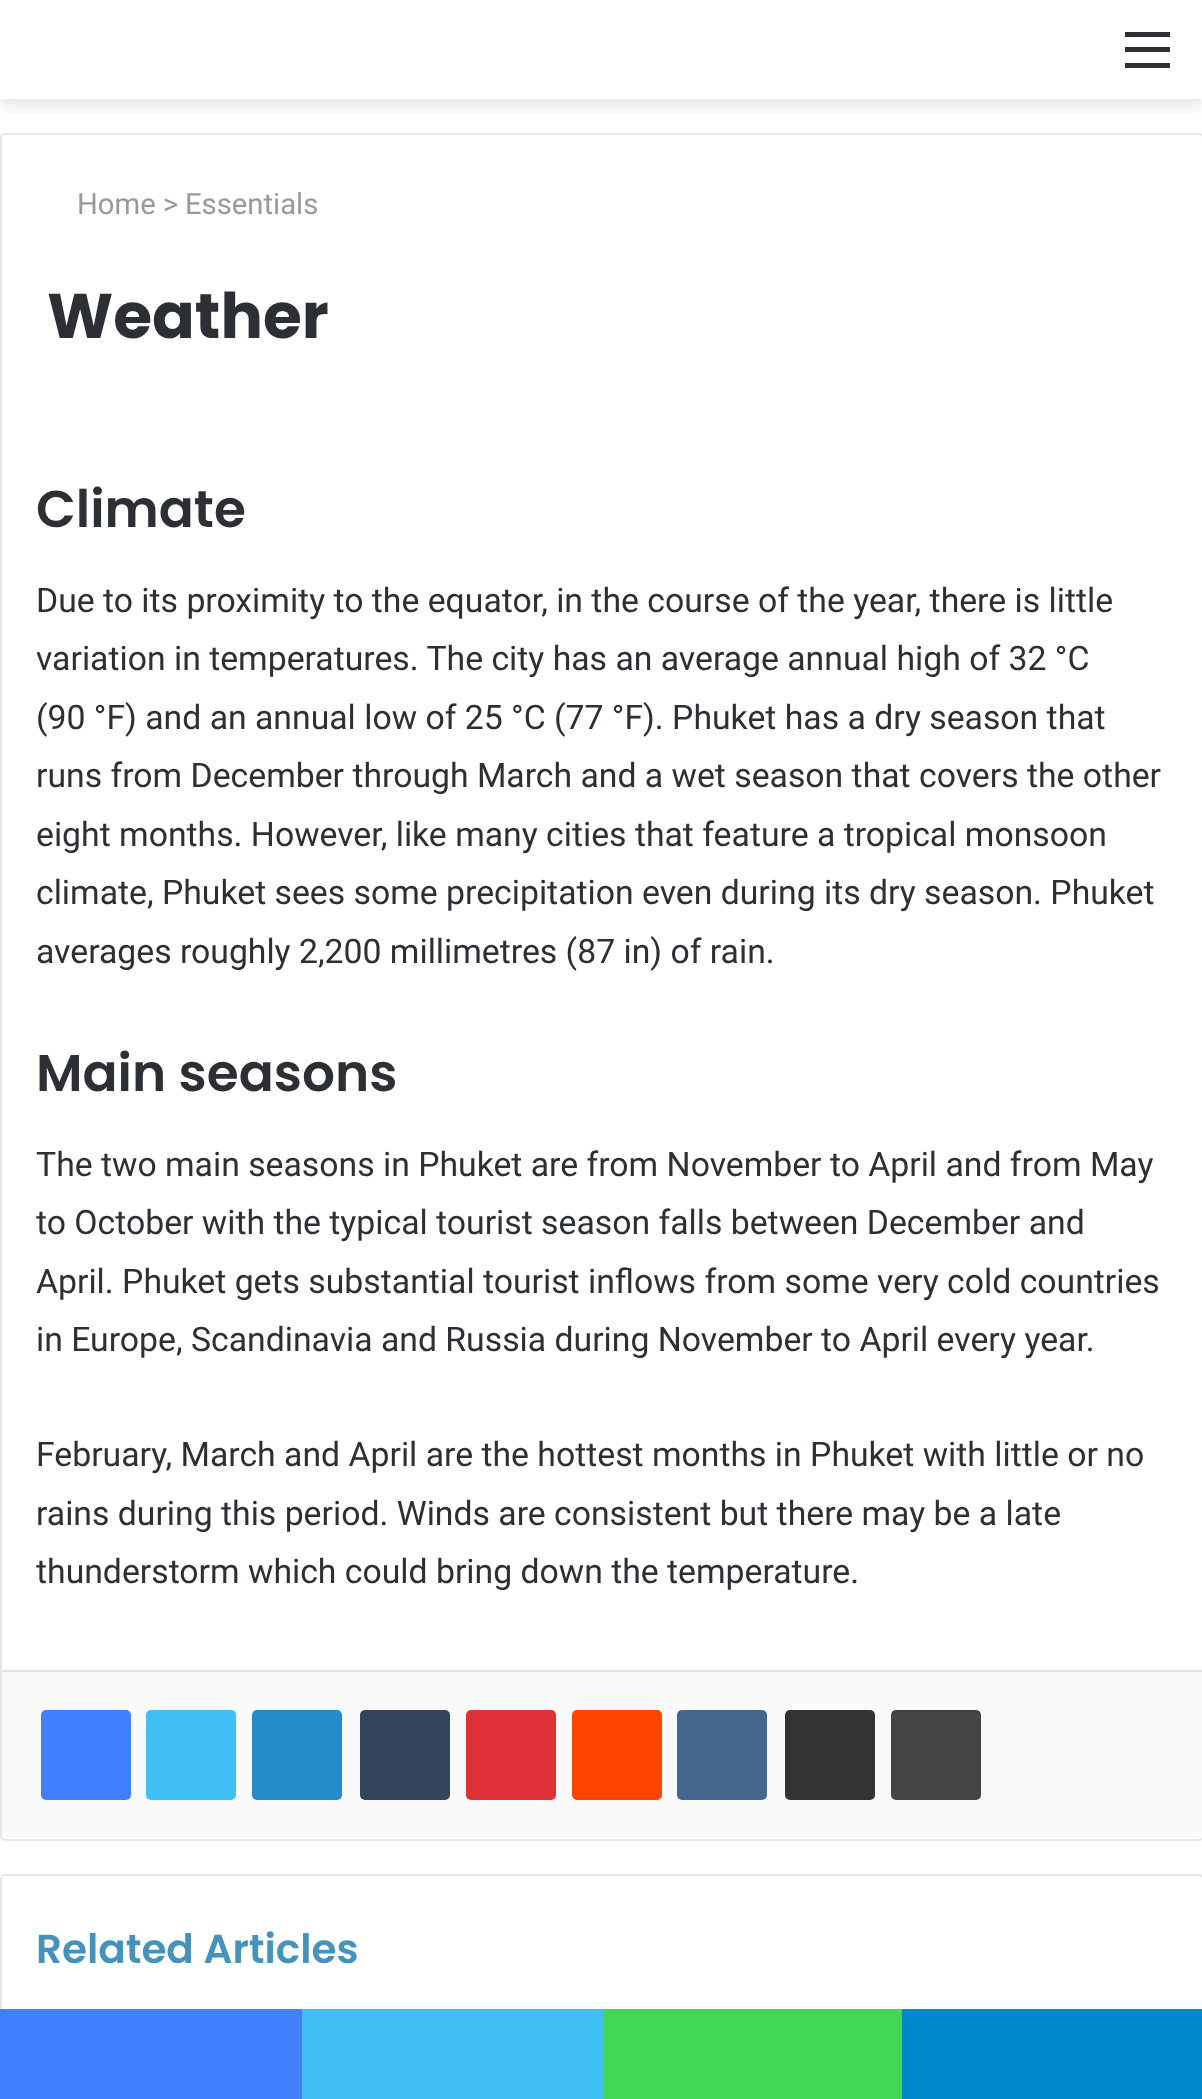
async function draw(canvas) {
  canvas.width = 1202
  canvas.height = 2099
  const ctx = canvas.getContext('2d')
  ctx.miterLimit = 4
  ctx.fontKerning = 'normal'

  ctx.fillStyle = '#fff'
  ctx.fillRect(0, 0, 1202, 2099)
  ctx.save()
  ctx.beginPath()
  ctx.rect(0, 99, 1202, 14)
  ctx.clip()
  ctx.fillStyle = '#0000001a'
  ctx.filter = 'blur(8px)'
  ctx.beginPath()
  ctx.rect(0, 7, 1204, 99)
  ctx.fill()
  ctx.filter = 'none'
  ctx.restore()
  ctx.fillStyle = '#2c2f34'
  ctx.fillRect(1125, 47, 45, 5)
  ctx.fillRect(1125, 32, 45, 5)
  ctx.fillRect(1125, 63, 45, 5)
  ctx.beginPath()
  ctx.roundRect(1, 134, 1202, 1706, 4)
  ctx.strokeStyle = '#e6e6e6'
  ctx.lineWidth = 2
  ctx.stroke()
  ctx.font = '29.25px Roboto'
  ctx.fillStyle = '#999'
  ctx.fillText('Home', 77, 214)
  ctx.fillText('>', 163, 214)
  ctx.fillText('Essentials', 185, 214)
  ctx.font = 'bold 63px Poppins'
  ctx.fillStyle = '#2c2f34'
  ctx.fillText('Weather', 47, 338)
  ctx.font = '600 51.75px Poppins'
  ctx.fillText('Climate', 36, 527)
  ctx.font = '33.75px Roboto'
  ctx.fillText('Due to its proximity to the equator, in the course of the year, there is little', 36, 612)
  ctx.fillText('variation in temperatures. The city has an average annual high of 32 °C', 36, 670)
  ctx.fillText('(90 °F) and an annual low of 25 °C (77 °F). Phuket has a dry season that', 36, 729)
  ctx.fillText('runs from December through March and a wet season that covers the other', 36, 787)
  ctx.fillText('eight months. However, like many cities that feature a tropical monsoon', 36, 846)
  ctx.fillText('climate, Phuket sees some precipitation even during its dry season. Phuket', 36, 904)
  ctx.fillText('averages roughly 2,200 millimetres (87 in) of rain.', 36, 963)
  ctx.font = '600 51.75px Poppins'
  ctx.fillText('Main seasons', 36, 1091)
  ctx.font = '33.75px Roboto'
  ctx.fillText('The two main seasons in Phuket are from November to April and from May', 36, 1176)
  ctx.fillText('to October with the typical tourist season falls between December and', 36, 1234)
  ctx.fillText('April. Phuket gets substantial tourist inflows from some very cold countries', 36, 1293)
  ctx.fillText('in Europe, Scandinavia and Russia during November to April every year.', 36, 1351)
  ctx.fillText('February, March and April are the hottest months in Phuket with little or no', 36, 1466)
  ctx.fillText('rains during this period. Winds are consistent but there may be a late', 36, 1525)
  ctx.fillText('thunderstorm which could bring down the temperature.', 36, 1583)
  ctx.fillStyle = '#fafafa'
  ctx.fillRect(2, 1672, 1200, 166)
  ctx.fillStyle = '#e1e1e1'
  ctx.fillRect(2, 1670, 1200, 2)
  ctx.fillStyle = '#4080ff'
  ctx.beginPath()
  ctx.roundRect(41, 1710, 90, 90, 5)
  ctx.fill()
  ctx.fillStyle = '#40bff5'
  ctx.beginPath()
  ctx.roundRect(146, 1710, 90, 90, 5)
  ctx.fill()
  ctx.fillStyle = '#238cc8'
  ctx.beginPath()
  ctx.roundRect(252, 1710, 90, 90, 5)
  ctx.fill()
  ctx.fillStyle = '#35465c'
  ctx.beginPath()
  ctx.roundRect(360, 1710, 90, 90, 5)
  ctx.fill()
  ctx.fillStyle = '#e13138'
  ctx.beginPath()
  ctx.roundRect(466, 1710, 90, 90, 5)
  ctx.fill()
  ctx.fillStyle = '#ff4500'
  ctx.beginPath()
  ctx.roundRect(572, 1710, 90, 90, 5)
  ctx.fill()
  ctx.fillStyle = '#45668e'
  ctx.beginPath()
  ctx.roundRect(677, 1710, 90, 90, 5)
  ctx.fill()
  ctx.fillStyle = '#333'
  ctx.beginPath()
  ctx.roundRect(785, 1710, 90, 90, 5)
  ctx.fill()
  ctx.fillStyle = '#444'
  ctx.beginPath()
  ctx.roundRect(891, 1710, 90, 90, 5)
  ctx.fill()
  ctx.beginPath()
  ctx.roundRect(1, 1875, 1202, 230, 4)
  ctx.stroke()
  ctx.font = '600 40.5px Poppins'
  ctx.fillStyle = '#4593bc'
  ctx.fillText('Related Articles', 36, 1963)
  ctx.fillStyle = '#4080ff'
  ctx.fillRect(0, 2009, 302, 90)
  ctx.fillStyle = '#40bff5'
  ctx.fillRect(302, 2009, 301, 90)
  ctx.fillStyle = '#43d854'
  ctx.fillRect(603, 2009, 299, 90)
  ctx.fillStyle = '#08c'
  ctx.fillRect(902, 2009, 300, 90)
}

draw(document.querySelector('canvas'))
